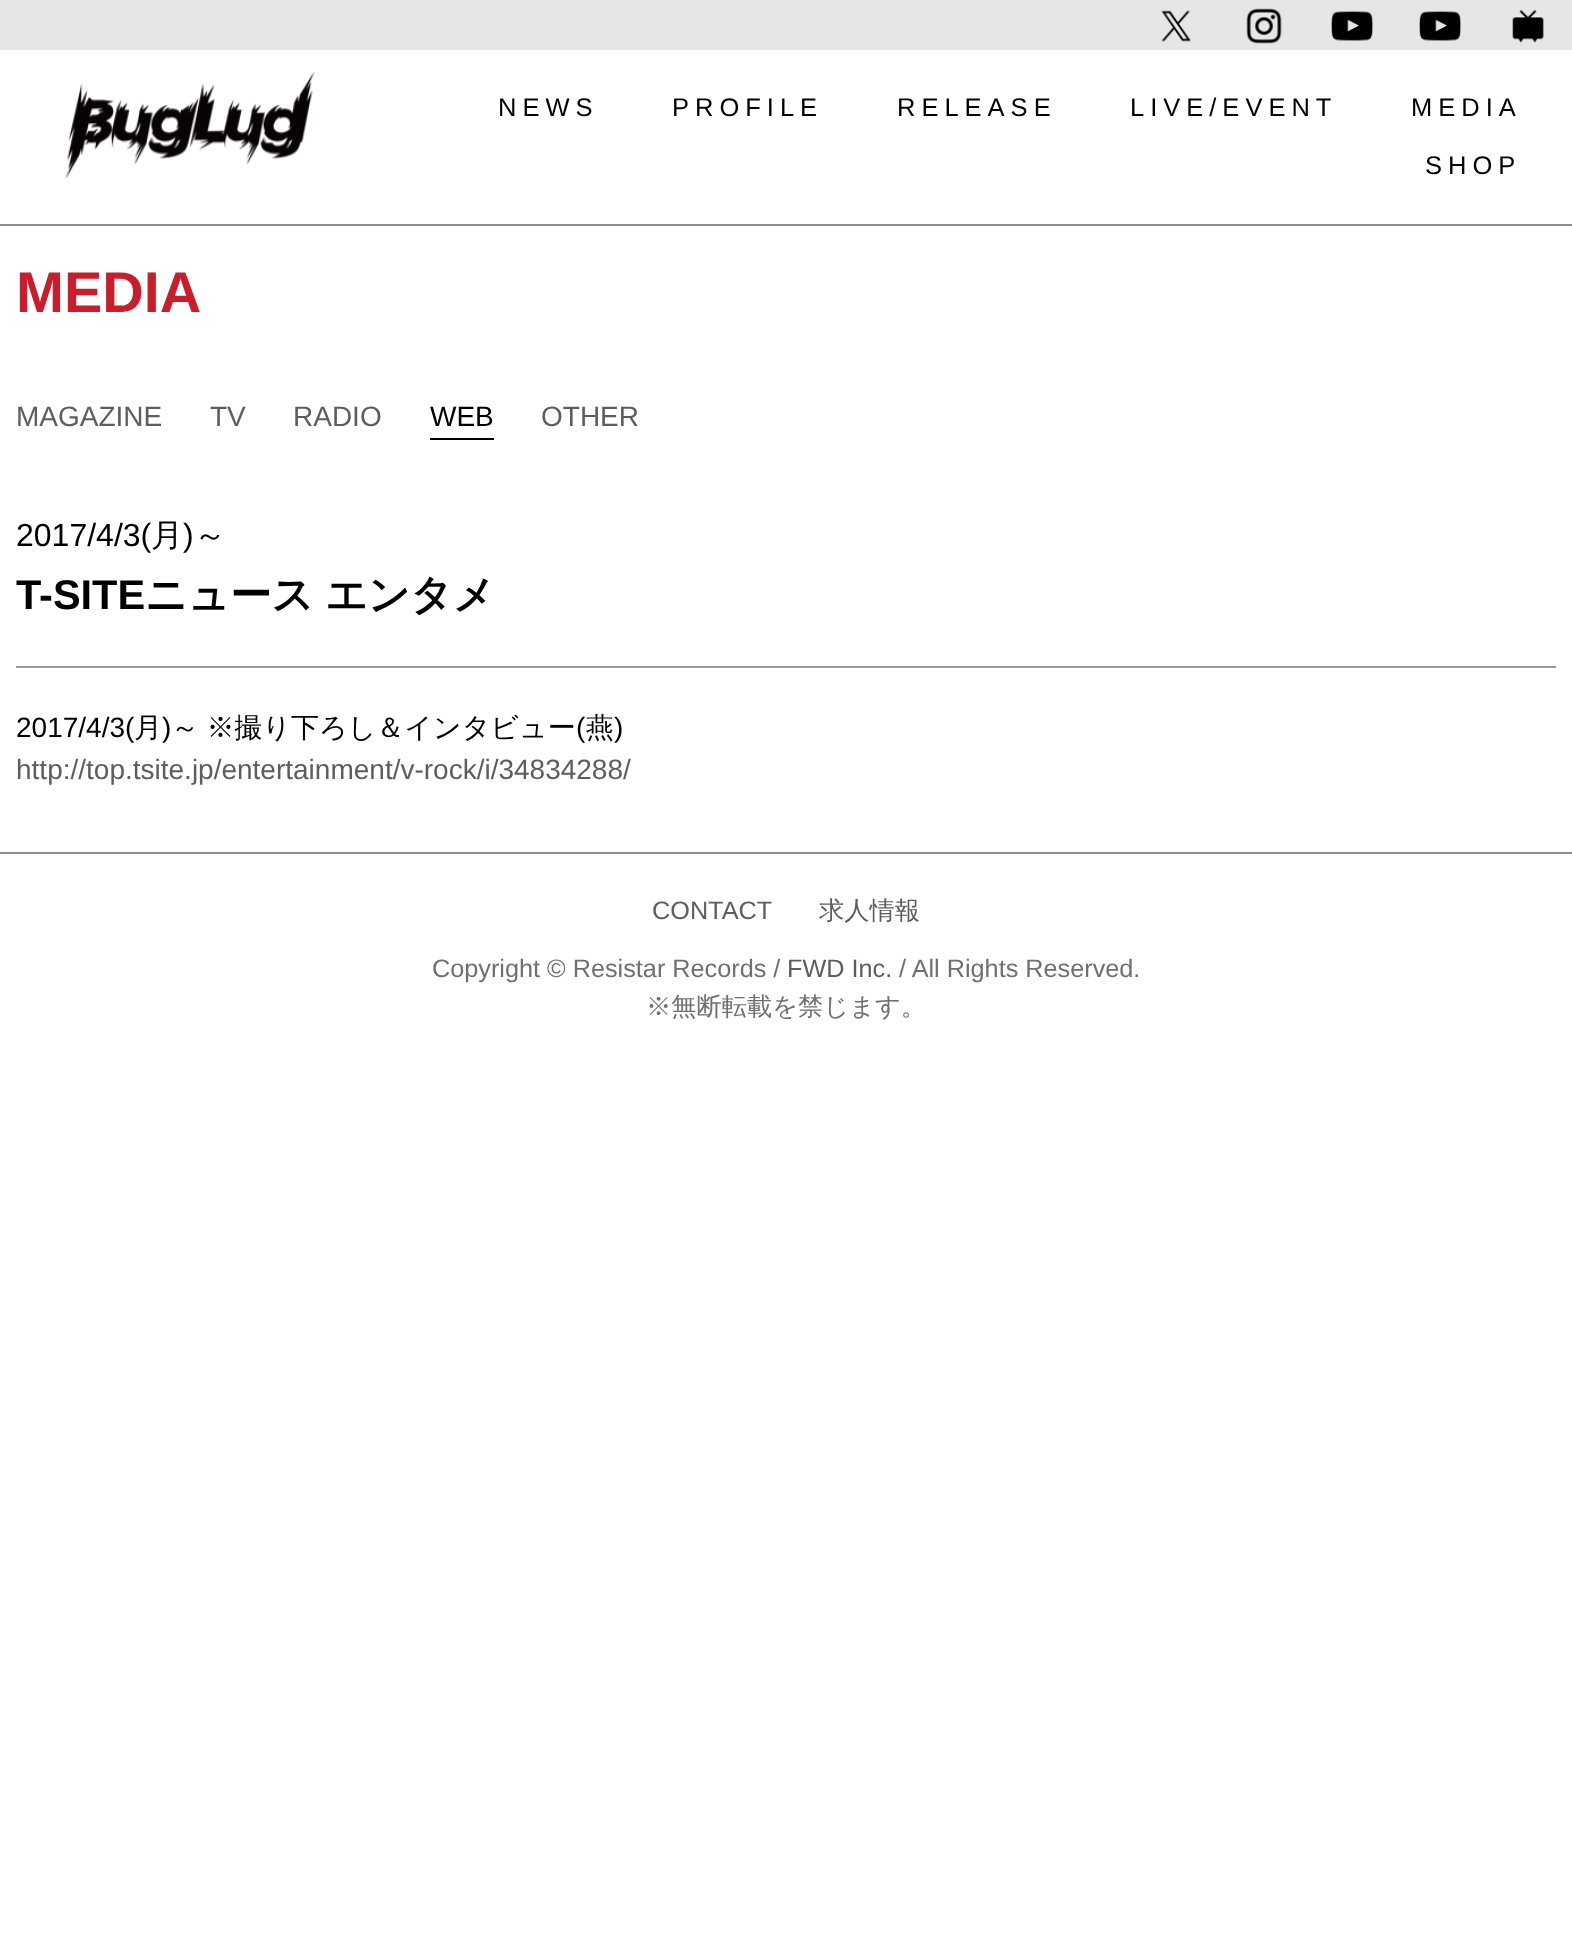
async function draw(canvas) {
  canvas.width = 1572
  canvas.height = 1937
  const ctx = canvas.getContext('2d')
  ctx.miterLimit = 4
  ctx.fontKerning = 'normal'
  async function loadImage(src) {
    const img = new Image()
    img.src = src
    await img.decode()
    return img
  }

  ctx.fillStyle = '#fff'
  ctx.fillRect(0, 0, 1572, 1937)
  ctx.fillStyle = '#8e8e8e'
  ctx.fillRect(0, 224, 1572, 2)
  ctx.fillStyle = '#e6e6e6'
  ctx.fillRect(0, 0, 1572, 50)
  ctx.drawImage(await loadImage('image0.png'), 1161, 10, 30, 32)
  ctx.drawImage(await loadImage('image1.png'), 1246, 8, 36, 36)
  ctx.drawImage(await loadImage('image2.png'), 1331, 11, 43, 30)
  ctx.drawImage(await loadImage('image3.png'), 1419, 11, 43, 30)
  ctx.drawImage(await loadImage('image4.png'), 1512, 9, 32, 34)
  ctx.drawImage(await loadImage('image5.png'), 65, 72, 250, 106)
  ctx.letterSpacing = '6px'
  ctx.font = '25.5px Liberation Sans'
  ctx.fillStyle = '#000'
  ctx.fillText('NEWS', 498, 116)
  ctx.fillText('PROFILE', 672, 116)
  ctx.fillText('RELEASE', 897, 116)
  ctx.fillText('LIVE/EVENT', 1130, 116)
  ctx.fillText('MEDIA', 1411, 116)
  ctx.fillText('SHOP', 1425, 174)
  ctx.letterSpacing = '0px'
  ctx.font = 'bold 57.5px Liberation Sans'
  ctx.fillStyle = '#ca1d2b'
  ctx.fillText('MEDIA', 16, 312)
  ctx.font = '28px Liberation Sans'
  ctx.fillStyle = '#5d5d5d'
  ctx.fillText('MAGAZINE', 16, 426)
  ctx.fillText('TV', 210, 426)
  ctx.fillText('RADIO', 293, 426)
  ctx.fillStyle = '#000'
  ctx.fillRect(430, 438, 64, 2)
  ctx.fillText('WEB', 430, 426)
  ctx.fillStyle = '#5d5d5d'
  ctx.fillText('OTHER', 541, 426)
  ctx.fillStyle = '#999'
  ctx.fillRect(16, 666, 1540, 2)
  ctx.font = '32px Liberation Sans'
  ctx.fillStyle = '#000'
  ctx.fillText('2017/4/3(', 16, 546)
  ctx.font = '500 32px WenQuanYi Zen Hei'
  ctx.fillText('月', 151, 546)
  ctx.font = '32px Liberation Sans'
  ctx.fillText(')', 183, 546)
  ctx.font = '500 32px WenQuanYi Zen Hei'
  ctx.fillText('～', 194, 546)
  ctx.font = 'bold 41.5px Liberation Sans'
  ctx.fillText('T-SITE', 16, 609)
  ctx.wordSpacing = '-1px'
  ctx.font = 'bold 41.5px WenQuanYi Zen Hei'
  ctx.fillText('ニュース エンタメ', 145, 609)
  ctx.wordSpacing = '0px'
  ctx.font = '28px Liberation Sans'
  ctx.fillText('2017/4/3(', 16, 737)
  ctx.font = '500 28px WenQuanYi Zen Hei'
  ctx.fillText('月', 134, 737)
  ctx.font = '28px Liberation Sans'
  ctx.fillText(')', 162, 737)
  ctx.wordSpacing = '-1px'
  ctx.font = '500 28px WenQuanYi Zen Hei'
  ctx.fillText('～ ※撮り下ろし＆インタビュー', 171, 737)
  ctx.wordSpacing = '0px'
  ctx.font = '28px Liberation Sans'
  ctx.fillText('(', 576, 737)
  ctx.font = '500 28px WenQuanYi Zen Hei'
  ctx.fillText('燕', 586, 737)
  ctx.font = '28px Liberation Sans'
  ctx.fillText(')', 614, 737)
  ctx.fillStyle = '#5d5d5d'
  ctx.fillText('http://top.tsite.jp/entertainment/v-rock/i/34834288/', 16, 779)
  ctx.fillStyle = '#8e8e8e'
  ctx.fillRect(0, 852, 1572, 2)
  ctx.font = '25.25px Liberation Sans'
  ctx.fillStyle = '#5d5d5d'
  ctx.fillText('CONTACT', 652, 919)
  ctx.font = '500 25.25px WenQuanYi Zen Hei'
  ctx.fillText('求人情報', 819, 919)
  ctx.font = '25.25px Liberation Sans'
  ctx.fillStyle = '#6f6f6f'
  ctx.fillText('Copyright © Resistar Records /', 432, 977)
  ctx.fillStyle = '#5d5d5d'
  ctx.fillText('FWD Inc.', 787, 977)
  ctx.fillStyle = '#6f6f6f'
  ctx.fillText('/ All Rights Reserved.', 899, 977)
  ctx.font = '500 25.25px WenQuanYi Zen Hei'
  ctx.fillText('※無断転載を禁じます。', 646, 1015)
}

draw(document.querySelector('canvas'))
